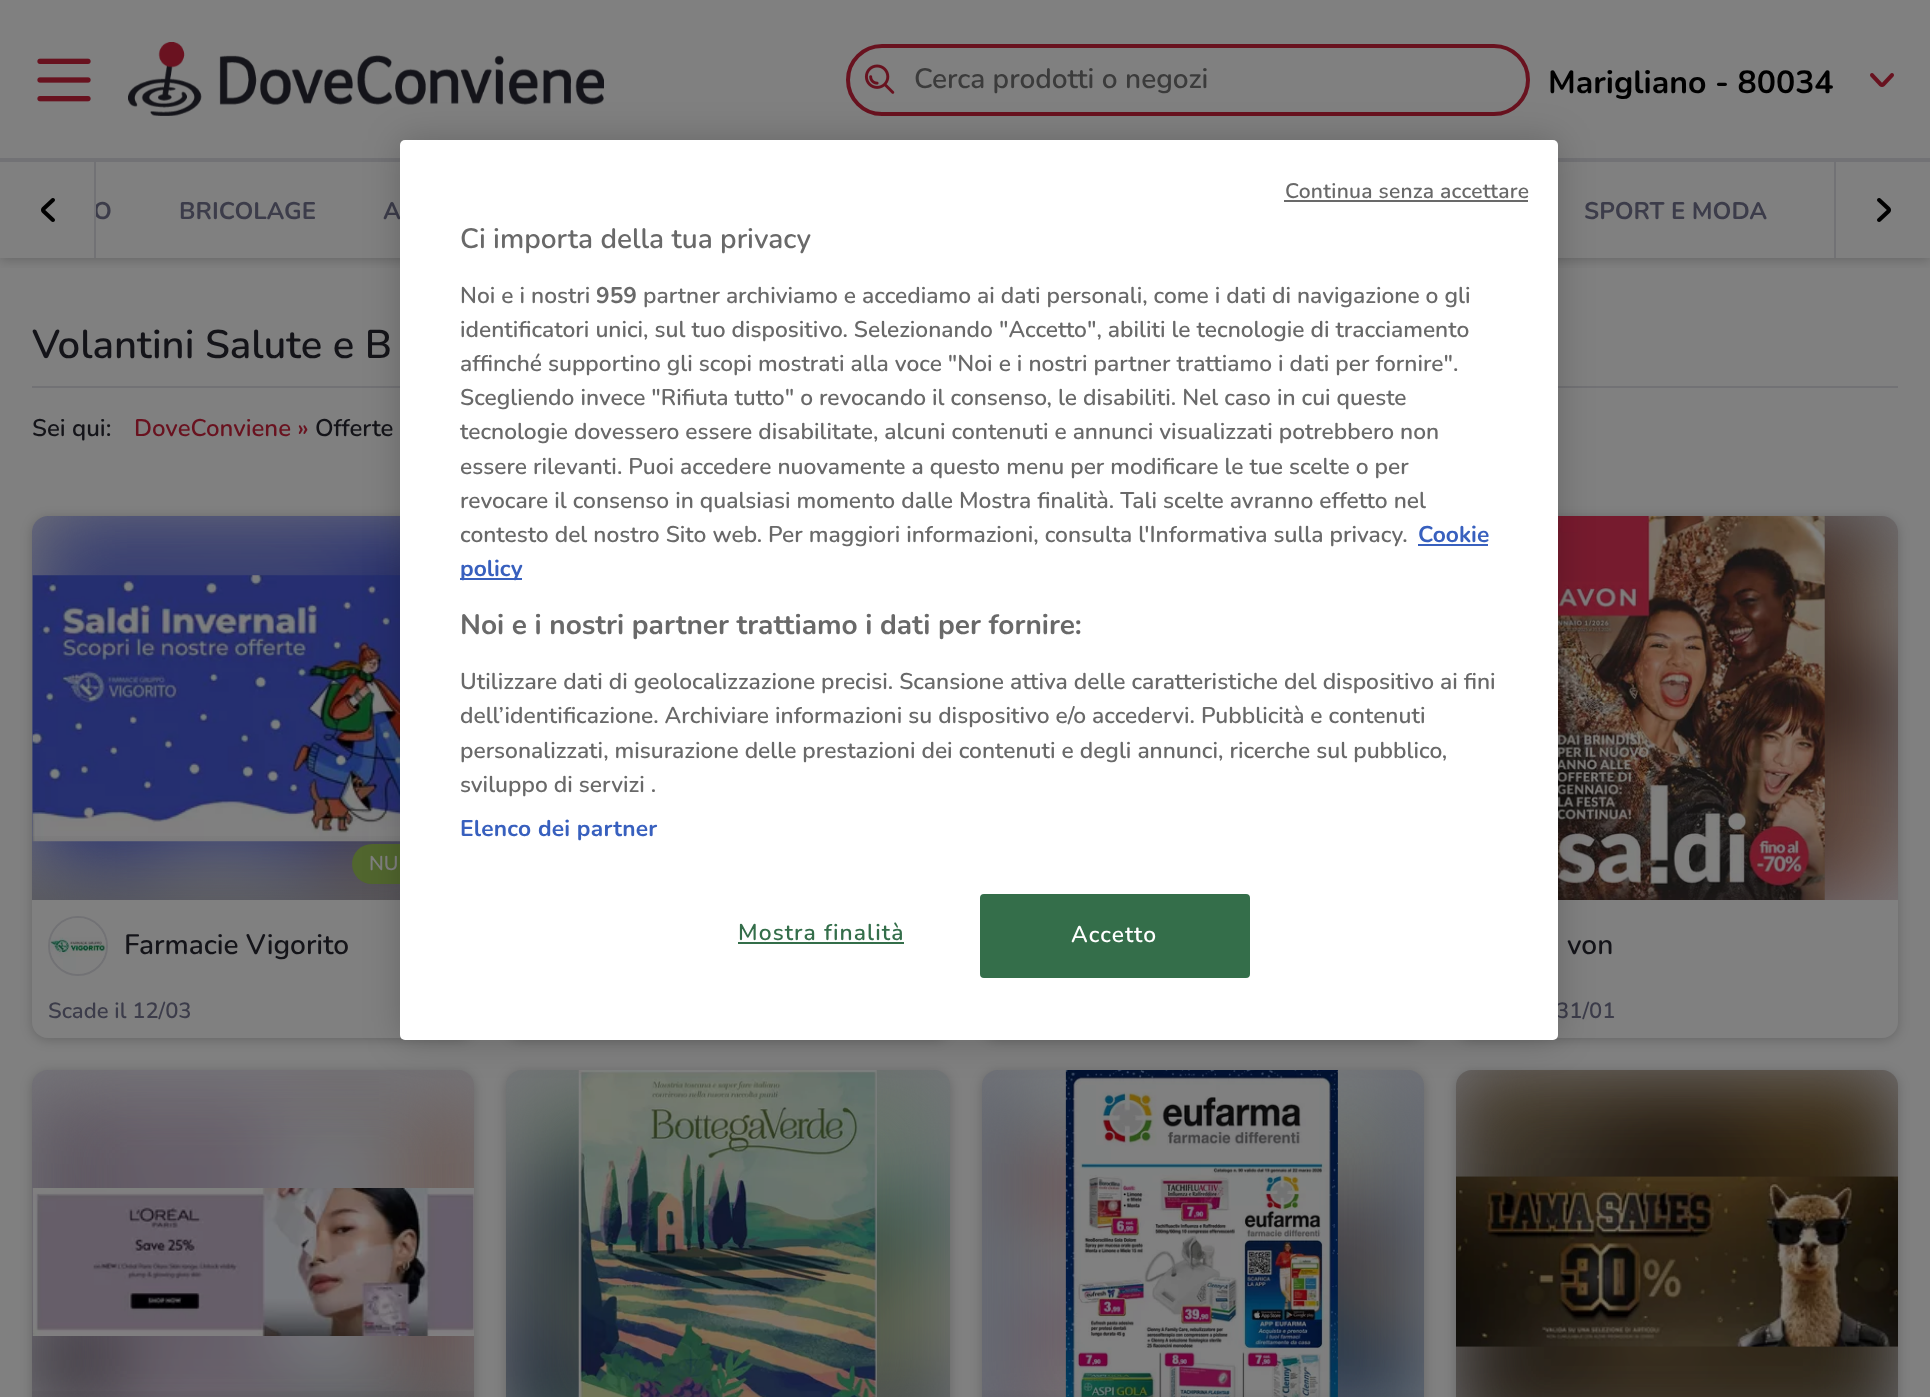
async function draw(canvas) {
  canvas.width = 1930
  canvas.height = 1397
  const ctx = canvas.getContext('2d')
  ctx.miterLimit = 4
  ctx.fontKerning = 'normal'
  async function loadImage(src) {
    const img = new Image()
    img.src = src
    await img.decode()
    return img
  }
  let gradient

  ctx.fillStyle = '#808080'
  ctx.fillRect(0, 0, 1930, 1397)
  ctx.save()
  ctx.beginPath()
  ctx.rect(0, 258, 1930, 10)
  ctx.clip()
  ctx.fillStyle = '#00000033'
  ctx.filter = 'blur(6px)'
  ctx.beginPath()
  ctx.rect(0, 2, 1930, 258)
  ctx.fill()
  ctx.filter = 'none'
  ctx.restore()
  ctx.drawImage(await loadImage('image0.png'), 37, 58, 54, 44)
  ctx.drawImage(await loadImage('image1.png'), 128, 42, 476, 74)
  ctx.beginPath()
  ctx.roundRect(848, 46, 680, 68, 34)
  ctx.strokeStyle = '#69121f'
  ctx.lineWidth = 4
  ctx.stroke()
  ctx.drawImage(await loadImage('image2.png'), 864, 64, 31, 30)
  ctx.font = '600 28px Nunito'
  ctx.fillStyle = '#3b3b3b'
  ctx.fillText('Cerca prodotti o negozi', 914, 88)
  ctx.font = 'bold 32px Nunito'
  ctx.fillStyle = '#000'
  ctx.fillText('Marigliano - 80034', 1548, 93)
  ctx.drawImage(await loadImage('image3.png'), 1870, 73, 24, 14)
  ctx.fillStyle = '#727275'
  ctx.fillRect(0, 158, 1930, 4)
  ctx.fillRect(94, 162, 2, 96)
  ctx.drawImage(await loadImage('image4.png'), 41, 198, 14, 24)
  ctx.save()
  ctx.beginPath()
  ctx.rect(96, 178, 1738, 66)
  ctx.clip()
  ctx.font = 'bold 24px Nunito'
  ctx.fillStyle = '#3c3c4a'
  ctx.fillText('O', 93, 219)
  ctx.restore()
  ctx.font = 'bold 24px Nunito'
  ctx.fillStyle = '#3c3c4a'
  ctx.fillText('BRICOLAGE', 179, 219)
  ctx.fillText('A', 383, 219)
  ctx.fillText('SPORT E MODA', 1584, 219)
  ctx.fillStyle = '#727275'
  ctx.fillRect(1834, 162, 2, 96)
  ctx.drawImage(await loadImage('image5.png'), 1877, 198, 14, 24)
  ctx.fillRect(32, 386, 1866, 2)
  ctx.font = '600 40px Nunito'
  ctx.fillStyle = '#141419'
  ctx.fillText('Volantini Salute e B', 32, 358)
  ctx.font = '600 24px Nunito'
  ctx.fillText('Sei qui:', 32, 436)
  ctx.fillStyle = '#69121f'
  ctx.fillText('DoveConviene »', 134, 436)
  ctx.fillStyle = '#141419'
  ctx.fillText('Offerte', 315, 436)
  ctx.fillStyle = '#00000033'
  ctx.filter = 'blur(6px)'
  ctx.beginPath()
  ctx.roundRect(32, 518, 442, 522, 16)
  ctx.fill()
  ctx.filter = 'none'
  ctx.fillStyle = '#808080'
  ctx.beginPath()
  ctx.roundRect(32, 516, 442, 522, 16)
  ctx.fill()
  ctx.fillStyle = '#76767b'
  ctx.beginPath()
  ctx.roundRect(32, 516, 442, 384, [16, 16, 0, 0])
  ctx.fill()
  ctx.drawImage(await loadImage('image6.png'), 32, 516, 368, 384)
  ctx.drawImage(await loadImage('image7.png'), 32, 575, 368, 267)
  gradient = ctx.createLinearGradient(253, 900, 253, 828)
  gradient.addColorStop(0, '#00000033')
  gradient.addColorStop(1, '#00000000')
  ctx.fillStyle = gradient
  ctx.fillRect(32, 836, 368, 64)
  ctx.fillStyle = '#51662e'
  ctx.beginPath()
  ctx.roundRect(352, 844, 106, 40, 20)
  ctx.fill()
  ctx.font = '600 20px Nunito'
  ctx.fillStyle = '#808080'
  ctx.fillText('NU', 369, 870)
  ctx.beginPath()
  ctx.arc(78, 946, 29, 0, 2 * Math.PI)
  ctx.strokeStyle = '#727275'
  ctx.lineWidth = 2
  ctx.stroke()
  ctx.drawImage(await loadImage('image8.png'), 50, 918, 56, 56)
  ctx.font = '600 28px Nunito'
  ctx.fillStyle = '#141419'
  ctx.fillText('Farmacie Vigorito', 124, 954)
  ctx.font = '600 22px Nunito'
  ctx.fillStyle = '#3c3c4a'
  ctx.fillText('Scade il 12/03', 48, 1018)
  ctx.fillStyle = '#00000033'
  ctx.filter = 'blur(6px)'
  ctx.beginPath()
  ctx.roundRect(506, 518, 444, 522, 16)
  ctx.fill()
  ctx.filter = 'none'
  ctx.filter = 'blur(6px)'
  ctx.beginPath()
  ctx.roundRect(982, 518, 442, 522, 16)
  ctx.fill()
  ctx.filter = 'none'
  ctx.filter = 'blur(6px)'
  ctx.beginPath()
  ctx.roundRect(1456, 518, 442, 522, 16)
  ctx.fill()
  ctx.filter = 'none'
  ctx.fillStyle = '#808080'
  ctx.beginPath()
  ctx.roundRect(1456, 516, 442, 522, 16)
  ctx.fill()
  ctx.fillStyle = '#76767b'
  ctx.beginPath()
  ctx.roundRect(1456, 516, 442, 384, [16, 16, 0, 0])
  ctx.fill()
  ctx.drawImage(await loadImage('image10.png'), 1824, 516, 74, 384)
  ctx.drawImage(await loadImage('image9.png'), 1558, 516, 267, 384)
  ctx.font = '600 28px Nunito'
  ctx.fillStyle = '#141419'
  ctx.fillText('von', 1567, 954)
  ctx.font = '600 22px Nunito'
  ctx.fillStyle = '#3c3c4a'
  ctx.fillText('31/01', 1556, 1018)
  ctx.fillStyle = '#00000033'
  ctx.filter = 'blur(6px)'
  ctx.beginPath()
  ctx.roundRect(32, 1072, 442, 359, 16)
  ctx.fill()
  ctx.filter = 'none'
  ctx.fillStyle = '#76767b'
  ctx.beginPath()
  ctx.moveTo(48, 1070)
  ctx.lineTo(458, 1070)
  ctx.bezierCurveTo(467, 1070, 474, 1077, 474, 1086)
  ctx.lineTo(474, 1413)
  ctx.lineTo(32, 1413)
  ctx.lineTo(32, 1086)
  ctx.bezierCurveTo(32, 1077, 39, 1070, 48, 1070)
  ctx.closePath()
  ctx.fill()
  ctx.drawImage(await loadImage('image11.png'), 32, 1070, 442, 327)
  ctx.drawImage(await loadImage('image12.png'), 32, 1188, 442, 148)
  gradient = ctx.createLinearGradient(253, 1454, 253, 1382)
  gradient.addColorStop(0, '#00000033')
  gradient.addColorStop(1, '#00000000')
  ctx.fillStyle = gradient
  ctx.fillRect(32, 1391, 442, 6)
  ctx.fillStyle = '#00000033'
  ctx.filter = 'blur(6px)'
  ctx.beginPath()
  ctx.roundRect(506, 1072, 444, 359, 16)
  ctx.fill()
  ctx.filter = 'none'
  ctx.fillStyle = '#76767b'
  ctx.beginPath()
  ctx.moveTo(522, 1070)
  ctx.lineTo(934, 1070)
  ctx.bezierCurveTo(943, 1070, 950, 1077, 950, 1086)
  ctx.lineTo(950, 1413)
  ctx.lineTo(506, 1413)
  ctx.lineTo(506, 1086)
  ctx.bezierCurveTo(506, 1077, 513, 1070, 522, 1070)
  ctx.closePath()
  ctx.fill()
  ctx.drawImage(await loadImage('image13.png'), 506, 1070, 444, 327)
  ctx.drawImage(await loadImage('image14.png'), 578, 1070, 299, 327)
  ctx.fillStyle = '#00000033'
  ctx.filter = 'blur(6px)'
  ctx.beginPath()
  ctx.roundRect(982, 1072, 442, 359, 16)
  ctx.fill()
  ctx.filter = 'none'
  ctx.fillStyle = '#76767b'
  ctx.beginPath()
  ctx.moveTo(998, 1070)
  ctx.lineTo(1408, 1070)
  ctx.bezierCurveTo(1417, 1070, 1424, 1077, 1424, 1086)
  ctx.lineTo(1424, 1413)
  ctx.lineTo(982, 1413)
  ctx.lineTo(982, 1086)
  ctx.bezierCurveTo(982, 1077, 989, 1070, 998, 1070)
  ctx.closePath()
  ctx.fill()
  ctx.drawImage(await loadImage('image15.png'), 982, 1070, 442, 327)
  ctx.drawImage(await loadImage('image16.png'), 1065, 1070, 273, 327)
  gradient = ctx.createLinearGradient(1203, 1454, 1203, 1382)
  gradient.addColorStop(0, '#00000033')
  gradient.addColorStop(1, '#00000000')
  ctx.fillStyle = gradient
  ctx.fillRect(982, 1390, 442, 7)
  ctx.fillStyle = '#00000033'
  ctx.filter = 'blur(6px)'
  ctx.beginPath()
  ctx.roundRect(1456, 1072, 442, 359, 16)
  ctx.fill()
  ctx.filter = 'none'
  ctx.fillStyle = '#76767b'
  ctx.beginPath()
  ctx.moveTo(1472, 1070)
  ctx.lineTo(1882, 1070)
  ctx.bezierCurveTo(1891, 1070, 1898, 1077, 1898, 1086)
  ctx.lineTo(1898, 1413)
  ctx.lineTo(1456, 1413)
  ctx.lineTo(1456, 1086)
  ctx.bezierCurveTo(1456, 1077, 1463, 1070, 1472, 1070)
  ctx.closePath()
  ctx.fill()
  ctx.drawImage(await loadImage('image17.png'), 1456, 1070, 442, 327)
  ctx.drawImage(await loadImage('image18.png'), 1456, 1176, 442, 171)
  ctx.fillStyle = '#00000033'
  ctx.filter = 'blur(18px)'
  ctx.beginPath()
  ctx.roundRect(400, 140, 1158, 900, 5)
  ctx.fill()
  ctx.filter = 'none'
  ctx.fillStyle = '#fff'
  ctx.beginPath()
  ctx.roundRect(400, 140, 1158, 900, 5)
  ctx.fill()
  ctx.letterSpacing = '0.25px'
  ctx.font = '600 21px Nunito'
  ctx.fillStyle = '#696969'
  ctx.fillText('Continua senza accettare', 1285, 198)
  ctx.fillRect(1284, 200, 244, 2)
  ctx.letterSpacing = '0px'
  ctx.font = '600 28px Nunito'
  ctx.fillText('Ci importa della tua privacy', 460, 248)
  ctx.font = '600 22.75px Nunito'
  ctx.fillText('Noi e i nostri', 460, 303)
  ctx.font = 'bold 22.75px Nunito'
  ctx.fillText('959', 596, 303)
  ctx.font = '600 22.75px Nunito'
  ctx.fillText('partner archiviamo e accediamo ai dati personali, come i dati di navigazione o gli', 643, 303)
  ctx.fillText('identificatori unici, sul tuo dispositivo. Selezionando "Accetto", abiliti le tecnologie di tracciamento', 460, 337)
  ctx.fillText('affinché supportino gli scopi mostrati alla voce "Noi e i nostri partner trattiamo i dati per fornire".', 460, 371)
  ctx.fillText('Scegliendo invece "Rifiuta tutto" o revocando il consenso, le disabiliti. Nel caso in cui queste', 460, 405)
  ctx.fillText('tecnologie dovessero essere disabilitate, alcuni contenuti e annunci visualizzati potrebbero non', 460, 439)
  ctx.fillText('essere rilevanti. Puoi accedere nuovamente a questo menu per modificare le tue scelte o per', 460, 474)
  ctx.fillText('revocare il consenso in qualsiasi momento dalle Mostra finalità. Tali scelte avranno effetto nel', 460, 508)
  ctx.fillText('contesto del nostro Sito web. Per maggiori informazioni, consulta l\'Informativa sulla privacy.', 460, 542)
  ctx.font = 'bold 22.75px Nunito'
  ctx.fillStyle = '#3860be'
  ctx.fillText('Cookie', 1418, 542)
  ctx.fillRect(1418, 544, 70, 2)
  ctx.fillRect(460, 578, 62, 2)
  ctx.fillText('policy', 460, 576)
  ctx.font = 'bold 28px Nunito'
  ctx.fillStyle = '#696969'
  ctx.fillText('Noi e i nostri partner trattiamo i dati per fornire:', 460, 634)
  ctx.font = '600 22.75px Nunito'
  ctx.fillText('Utilizzare dati di geolocalizzazione precisi. Scansione attiva delle caratteristiche del dispositivo ai fini', 460, 689)
  ctx.fillText('dell’identificazione. Archiviare informazioni su dispositivo e/o accedervi. Pubblicità e contenuti', 460, 723)
  ctx.fillText('personalizzati, misurazione delle prestazioni dei contenuti e degli annunci, ricerche sul pubblico,', 460, 758)
  ctx.fillText('sviluppo di servizi .', 460, 792)
  ctx.letterSpacing = '0.25px'
  ctx.font = 'bold 22.75px Nunito'
  ctx.fillStyle = '#3860be'
  ctx.fillText('Elenco dei partner', 460, 836)
  ctx.letterSpacing = '1.1px'
  ctx.font = '600 22.75px Nunito'
  ctx.fillStyle = '#346e4a'
  ctx.fillText('Mostra finalità', 738, 940)
  ctx.fillRect(738, 942, 166, 2)
  ctx.beginPath()
  ctx.roundRect(981, 895, 268, 82, 3)
  ctx.fill()
  ctx.strokeStyle = '#346e4a'
  ctx.stroke()
  ctx.fillStyle = '#fff'
  ctx.fillText('Accetto', 1071, 942)
}

draw(document.querySelector('canvas'))
